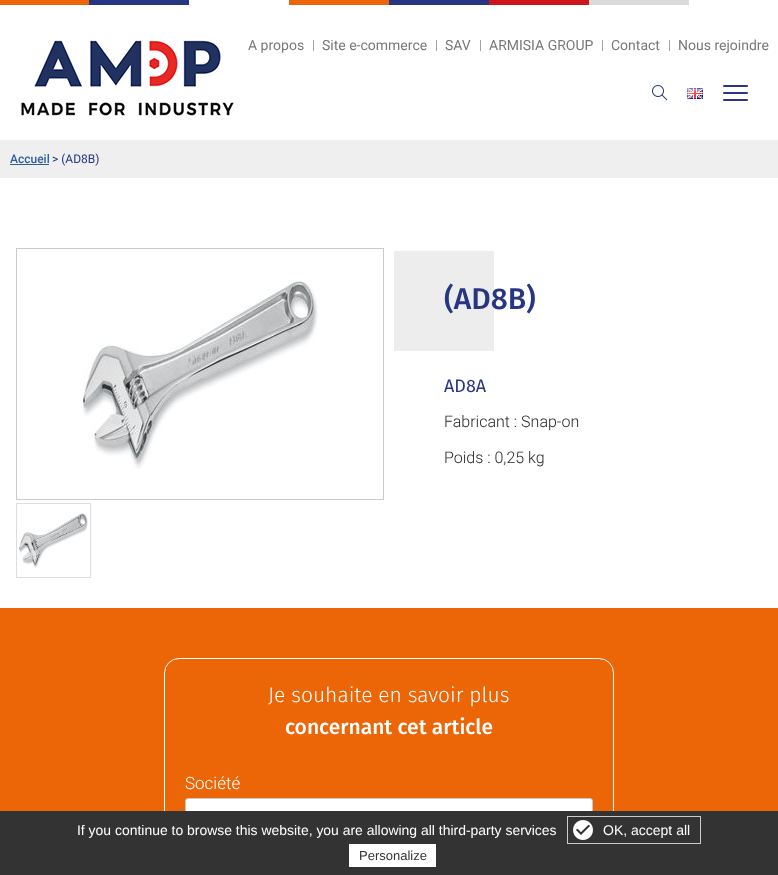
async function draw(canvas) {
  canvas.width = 778
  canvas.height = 875
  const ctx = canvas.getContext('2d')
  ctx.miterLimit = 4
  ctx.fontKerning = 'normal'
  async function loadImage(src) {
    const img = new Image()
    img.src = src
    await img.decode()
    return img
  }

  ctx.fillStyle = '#fff'
  ctx.fillRect(0, 0, 778, 875)
  ctx.drawImage(await loadImage('image0.png'), 0, 0, 778, 5)
  ctx.drawImage(await loadImage('image1.png'), 21, 40, 213, 76)
  ctx.font = '14px Roboto'
  ctx.fillStyle = '#77787b'
  ctx.fillText('A propos', 248, 50)
  ctx.fillStyle = '#a2a3a4'
  ctx.fillRect(313, 40, 1, 11)
  ctx.fillStyle = '#77787b'
  ctx.fillText('Site e-commerce', 322, 50)
  ctx.fillStyle = '#a2a3a4'
  ctx.fillRect(436, 40, 1, 11)
  ctx.fillStyle = '#77787b'
  ctx.fillText('SAV', 445, 50)
  ctx.fillStyle = '#a2a3a4'
  ctx.fillRect(480, 40, 1, 11)
  ctx.fillStyle = '#77787b'
  ctx.fillText('ARMISIA GROUP', 489, 50)
  ctx.fillStyle = '#a2a3a4'
  ctx.fillRect(602, 40, 1, 11)
  ctx.fillStyle = '#77787b'
  ctx.fillText('Contact', 611, 50)
  ctx.fillStyle = '#a2a3a4'
  ctx.fillRect(669, 40, 1, 11)
  ctx.fillStyle = '#77787b'
  ctx.fillText('Nous rejoindre', 678, 50)
  ctx.drawImage(await loadImage('image2.png'), 652, 85, 16, 16)
  ctx.drawImage(await loadImage('image3.png'), 687, 88, 16, 11)
  ctx.fillStyle = '#273583'
  ctx.beginPath()
  ctx.roundRect(723, 85, 25, 2, 1)
  ctx.fill()
  ctx.beginPath()
  ctx.roundRect(723, 92, 25, 2, 1)
  ctx.fill()
  ctx.beginPath()
  ctx.roundRect(723, 99, 25, 2, 1)
  ctx.fill()
  ctx.fillStyle = '#efeff0'
  ctx.fillRect(0, 140, 778, 38)
  ctx.font = '500 12px Roboto'
  ctx.fillStyle = '#2f5e97'
  ctx.fillText('Accueil', 10, 163)
  ctx.fillRect(10, 164, 39, 1)
  ctx.font = '12px Roboto'
  ctx.fillStyle = '#273583'
  ctx.fillText('> (AD8B)', 52, 163)
  ctx.strokeStyle = '#cacaca'
  ctx.strokeRect(16.5, 248.5, 367, 251)
  ctx.drawImage(await loadImage('image4.png'), 83, 281, 235, 188)
  ctx.strokeStyle = '#dcddde'
  ctx.strokeRect(16.5, 503.5, 74, 74)
  ctx.drawImage(await loadImage('image5.png'), 19, 513, 69, 55)
  ctx.fillStyle = '#ededee'
  ctx.fillRect(394, 251, 100, 100)
  ctx.font = '500 30px Fira Sans'
  ctx.fillStyle = '#273583'
  ctx.fillText('(AD8B)', 444, 309)
  ctx.font = '18px Fira Sans'
  ctx.fillText('AD8A', 444, 392)
  ctx.font = '300 16px Roboto'
  ctx.fillStyle = '#292728'
  ctx.fillText('Fabricant : Snap-on', 444, 427)
  ctx.fillText('Poids : 0,25 kg', 444, 463)
  ctx.fillStyle = '#ec6607'
  ctx.fillRect(0, 608, 778, 203)
  ctx.beginPath()
  ctx.roundRect(164.5, 658.5, 449, 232, 14.5)
  ctx.strokeStyle = '#fff'
  ctx.stroke()
  ctx.font = '300 21px Fira Sans'
  ctx.fillStyle = '#fff'
  ctx.fillText('Je souhaite en savoir plus', 268, 702)
  ctx.font = '500 21px Fira Sans'
  ctx.fillText('concernant cet article', 285, 734)
  ctx.font = '300 17px Roboto'
  ctx.fillText('Société', 185, 789)
  ctx.beginPath()
  ctx.roundRect(185.5, 798.5, 407, 39, 2.5)
  ctx.fill()
  ctx.strokeStyle = '#c7c8ca'
  ctx.stroke()
  ctx.fillStyle = '#333'
  ctx.fillRect(0, 811, 778, 64)
  ctx.font = '13.95px Liberation Sans'
  ctx.fillStyle = '#fff'
  ctx.fillText('If you continue to browse this website, you are allowing all third-party services', 77, 835)
  ctx.drawImage(await loadImage('image6.png'), 573, 820, 20, 20)
  ctx.strokeStyle = '#ccc'
  ctx.strokeRect(567.5, 816.5, 133, 27)
  ctx.font = '14px Liberation Sans'
  ctx.fillText('OK, accept all', 603, 835)
  ctx.fillRect(349, 844, 87, 23)
  ctx.font = '13px Liberation Sans'
  ctx.fillStyle = '#333'
  ctx.fillText('Personalize', 359, 860)
}

draw(document.querySelector('canvas'))
